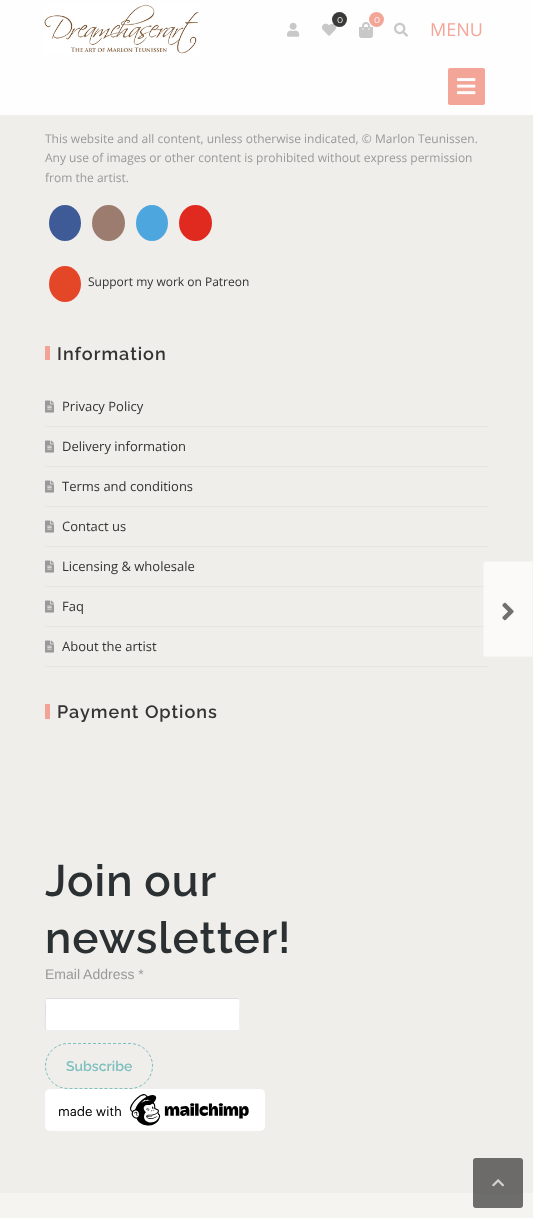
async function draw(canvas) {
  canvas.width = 533
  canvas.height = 1218
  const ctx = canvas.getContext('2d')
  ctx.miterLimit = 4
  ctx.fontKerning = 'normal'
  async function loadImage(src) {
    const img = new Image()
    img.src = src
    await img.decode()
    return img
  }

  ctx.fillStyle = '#f0eeea'
  ctx.fillRect(0, 0, 533, 1218)
  ctx.fillStyle = '#fffefe'
  ctx.fillRect(0, 0, 533, 115)
  ctx.drawImage(await loadImage('image0.png'), 44, 4, 155, 50)
  ctx.drawImage(await loadImage('image1.png'), 322, 23, 14, 13)
  ctx.fillStyle = '#393938'
  ctx.beginPath()
  ctx.arc(339.5, 19.5, 7.5, 0, 2 * Math.PI)
  ctx.fill()
  ctx.font = '10px Raleway'
  ctx.fillStyle = '#fffefe'
  ctx.fillText('0', 337, 23)
  ctx.drawImage(await loadImage('image2.png'), 359, 22, 14, 16)
  ctx.fillStyle = '#f3a598'
  ctx.beginPath()
  ctx.arc(376.5, 19.5, 7.5, 0, 2 * Math.PI)
  ctx.fill()
  ctx.fillStyle = '#fffefe'
  ctx.fillText('0', 374, 23)
  ctx.drawImage(await loadImage('image3.png'), 287, 22, 13, 15)
  ctx.drawImage(await loadImage('image4.png'), 394, 22, 14, 15)
  ctx.font = '18px Open Sans'
  ctx.fillStyle = '#f3a598'
  ctx.fillText('MENU', 430, 36)
  ctx.beginPath()
  ctx.roundRect(448, 68, 37, 37, 2)
  ctx.fill()
  ctx.drawImage(await loadImage('image5.png'), 457, 78, 19, 17)
  ctx.font = '12px Open Sans'
  ctx.fillStyle = '#999'
  ctx.fillText('This website and all content, unless otherwise indicated, © Marlon Teunissen.', 45, 143)
  ctx.fillText('Any use of images or other content is prohibited without express permission', 45, 162)
  ctx.fillText('from the artist.', 45, 182)
  ctx.fillStyle = '#3e5b98'
  ctx.beginPath()
  ctx.ellipse(65, 223, 16, 18, 0, 0, 2 * Math.PI)
  ctx.fill()
  ctx.fillStyle = '#9c7c6e'
  ctx.beginPath()
  ctx.ellipse(108.5, 223, 16.5, 18, 0, 0, 2 * Math.PI)
  ctx.fill()
  ctx.fillStyle = '#4da7de'
  ctx.beginPath()
  ctx.ellipse(152, 223, 16, 18, 0, 0, 2 * Math.PI)
  ctx.fill()
  ctx.fillStyle = '#e02a20'
  ctx.beginPath()
  ctx.ellipse(195.5, 223, 16.5, 18, 0, 0, 2 * Math.PI)
  ctx.fill()
  ctx.fillStyle = '#e44727'
  ctx.beginPath()
  ctx.ellipse(65, 284, 16, 18, 0, 0, 2 * Math.PI)
  ctx.fill()
  ctx.fillStyle = '#333'
  ctx.fillText('Support my work on Patreon', 88, 286)
  ctx.fillStyle = '#f3a395'
  ctx.fillRect(45, 346, 5, 14)
  ctx.letterSpacing = '1px'
  ctx.font = '600 18px Raleway'
  ctx.fillStyle = '#333'
  ctx.fillText('Information', 57, 360)
  ctx.fillStyle = '#e7e5e1'
  ctx.fillRect(45, 426, 443, 1)
  ctx.drawImage(await loadImage('image6.png'), 45, 400, 9, 13)
  ctx.letterSpacing = '0px'
  ctx.font = '13px Open Sans'
  ctx.fillStyle = '#333'
  ctx.fillText('Privacy Policy', 62, 411)
  ctx.fillStyle = '#e7e5e1'
  ctx.fillRect(45, 466, 443, 1)
  ctx.drawImage(await loadImage('image6.png'), 45, 440, 9, 13)
  ctx.fillStyle = '#333'
  ctx.fillText('Delivery information', 62, 451)
  ctx.fillStyle = '#e7e5e1'
  ctx.fillRect(45, 506, 443, 1)
  ctx.drawImage(await loadImage('image6.png'), 45, 480, 9, 13)
  ctx.fillStyle = '#333'
  ctx.fillText('Terms and conditions', 62, 491)
  ctx.fillStyle = '#e7e5e1'
  ctx.fillRect(45, 546, 443, 1)
  ctx.drawImage(await loadImage('image6.png'), 45, 520, 9, 13)
  ctx.fillStyle = '#333'
  ctx.fillText('Contact us', 62, 531)
  ctx.fillStyle = '#e7e5e1'
  ctx.fillRect(45, 586, 443, 1)
  ctx.drawImage(await loadImage('image6.png'), 45, 560, 9, 13)
  ctx.fillStyle = '#333'
  ctx.fillText('Licensing & wholesale', 62, 571)
  ctx.fillStyle = '#e7e5e1'
  ctx.fillRect(45, 626, 443, 1)
  ctx.drawImage(await loadImage('image6.png'), 45, 600, 9, 13)
  ctx.fillStyle = '#333'
  ctx.fillText('Faq', 62, 611)
  ctx.fillStyle = '#e7e5e1'
  ctx.fillRect(45, 666, 443, 1)
  ctx.drawImage(await loadImage('image6.png'), 45, 640, 9, 13)
  ctx.fillStyle = '#333'
  ctx.fillText('About the artist', 62, 651)
  ctx.fillStyle = '#f3a395'
  ctx.fillRect(45, 704, 5, 15)
  ctx.letterSpacing = '1px'
  ctx.font = '600 18px Raleway'
  ctx.fillStyle = '#333'
  ctx.fillText('Payment Options', 57, 718)
  ctx.wordSpacing = '-1px'
  ctx.font = '600 44px Raleway'
  ctx.fillStyle = '#2b3033'
  ctx.fillText('Join our', 45, 896)
  ctx.wordSpacing = '0px'
  ctx.fillText('newsletter!', 45, 953)
  ctx.letterSpacing = '0px'
  ctx.font = '14px Liberation Sans'
  ctx.fillStyle = '#999'
  ctx.fillText('Email Address *', 45, 979)
  ctx.fillStyle = '#fff'
  ctx.beginPath()
  ctx.roundRect(45, 998, 195, 33, 2)
  ctx.fill()
  ctx.beginPath()
  ctx.moveTo(239, 999)
  ctx.bezierCurveTo(240.5, 1000.5, 239.5, 1012, 239.5, 1014.5)
  ctx.lineTo(239.5, 1024)
  ctx.bezierCurveTo(239.5, 1024.5, 240.5, 1030.5, 238, 1030.5)
  ctx.lineTo(47, 1030.5)
  ctx.lineTo(46, 1030)
  ctx.strokeStyle = '#eee'
  ctx.stroke()
  ctx.beginPath()
  ctx.moveTo(46, 1030)
  ctx.bezierCurveTo(44.5, 1028.5, 45.5, 1017, 45.5, 1014.5)
  ctx.lineTo(45.5, 1005)
  ctx.bezierCurveTo(45.5, 1004.5, 44.5, 998.5, 47, 998.5)
  ctx.lineTo(238, 998.5)
  ctx.lineTo(239, 999)
  ctx.strokeStyle = '#ddd'
  ctx.stroke()
  ctx.beginPath()
  ctx.moveTo(68, 1043.5)
  ctx.lineTo(130, 1043.5)
  ctx.bezierCurveTo(142.5, 1043.5, 152.5, 1053.5, 152.5, 1066)
  ctx.bezierCurveTo(152.5, 1078.5, 142.5, 1088.5, 130, 1088.5)
  ctx.lineTo(68, 1088.5)
  ctx.bezierCurveTo(55.5, 1088.5, 45.5, 1078.5, 45.5, 1066)
  ctx.bezierCurveTo(45.5, 1053.5, 55.5, 1043.5, 68, 1043.5)
  ctx.closePath()
  ctx.strokeStyle = '#7ebfbf'
  ctx.setLineDash([3, 2])
  ctx.stroke()
  ctx.font = '600 14px Raleway'
  ctx.fillStyle = '#7ebfbf'
  ctx.fillText('Subscribe', 66, 1071)
  ctx.drawImage(await loadImage('image7.png'), 45, 1089, 220, 42)
  ctx.fillStyle = '#f5f4f1'
  ctx.fillRect(0, 1193, 533, 25)
  ctx.fillStyle = '#ffffffb3'
  ctx.beginPath()
  ctx.roundRect(483, 561, 50, 96, [3, 0, 0, 3])
  ctx.fill()
  ctx.beginPath()
  ctx.roundRect(483.5, 561.5, 49, 95, [2.5, 0, 0, 2.5])
  ctx.strokeStyle = '#f1f1f1b3'
  ctx.setLineDash([])
  ctx.stroke()
  ctx.drawImage(await loadImage('image8.png'), 502, 602, 12, 19)
  ctx.fillStyle = '#333333b3'
  ctx.beginPath()
  ctx.roundRect(473, 1158, 50, 50, 3)
  ctx.fill()
  ctx.drawImage(await loadImage('image9.png'), 492, 1179, 12, 8)
}

draw(document.querySelector('canvas'))
